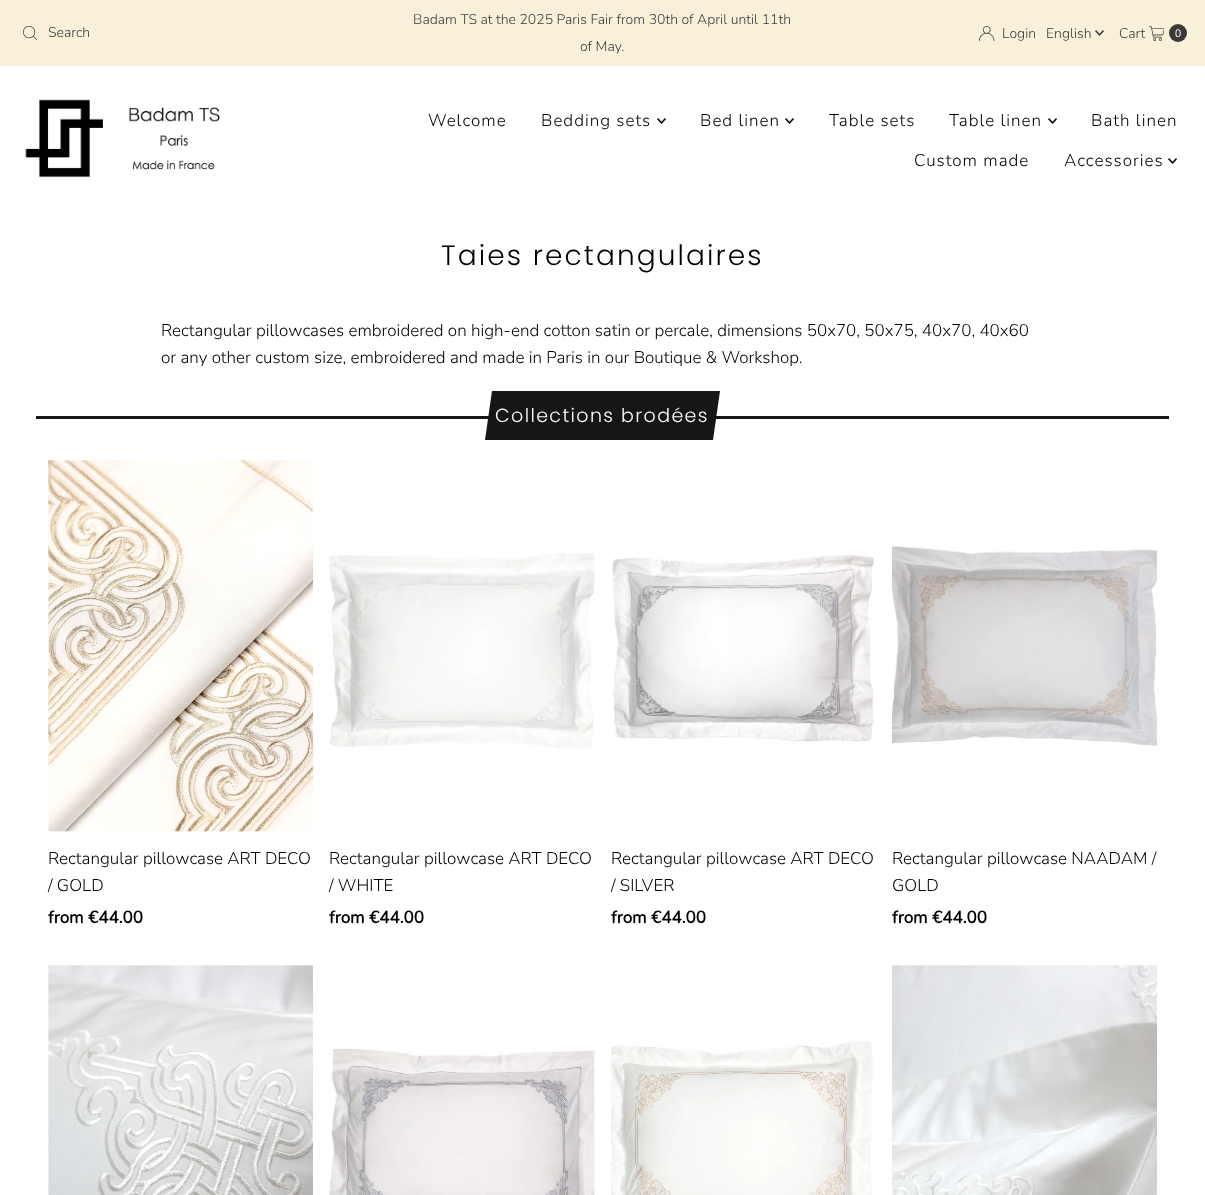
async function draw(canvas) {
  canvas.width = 1205
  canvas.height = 1195
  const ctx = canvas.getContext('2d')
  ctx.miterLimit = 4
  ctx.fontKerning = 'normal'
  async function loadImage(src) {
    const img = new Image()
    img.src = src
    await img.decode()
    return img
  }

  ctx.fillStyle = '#fff'
  ctx.fillRect(0, 0, 1205, 1195)
  ctx.fillStyle = '#f9f0da'
  ctx.fillRect(0, 0, 1205, 66)
  ctx.drawImage(await loadImage('image0.png'), 23, 26, 14, 14)
  ctx.font = '300 14px Nunito'
  ctx.fillStyle = '#393939'
  ctx.fillText('Search', 48, 37)
  ctx.fillText('Badam TS at the 2025 Paris Fair from 30th of April until 11th', 413, 24)
  ctx.fillText('of May.', 580, 51)
  ctx.drawImage(await loadImage('image1.png'), 979, 26, 16, 15)
  ctx.fillText('Login', 1002, 38)
  ctx.fillText('English', 1046, 38)
  ctx.drawImage(await loadImage('image2.png'), 1095, 30, 9, 6)
  ctx.fillText('Cart', 1119, 38)
  ctx.drawImage(await loadImage('image3.png'), 1149, 26, 15, 15)
  ctx.beginPath()
  ctx.arc(1178, 33, 9, 0, 2 * Math.PI)
  ctx.fill()
  ctx.font = '11px Liberation Sans'
  ctx.fillStyle = '#f9f0da'
  ctx.fillText('0', 1175, 37)
  ctx.drawImage(await loadImage('image4.png'), 25, 99, 195, 79)
  ctx.letterSpacing = '1px'
  ctx.font = '300 17px Nunito'
  ctx.fillStyle = '#000'
  ctx.fillText('Welcome', 428, 126)
  ctx.fillText('Bedding sets', 541, 126)
  ctx.drawImage(await loadImage('image5.png'), 657, 118, 9, 6)
  ctx.fillText('Bed linen', 700, 126)
  ctx.drawImage(await loadImage('image5.png'), 785, 118, 9, 6)
  ctx.fillText('Table sets', 829, 126)
  ctx.fillText('Table linen', 949, 126)
  ctx.drawImage(await loadImage('image5.png'), 1048, 118, 9, 6)
  ctx.fillText('Bath linen', 1091, 126)
  ctx.fillText('Custom made', 914, 166)
  ctx.fillText('Accessories', 1064, 166)
  ctx.drawImage(await loadImage('image5.png'), 1168, 158, 9, 6)
  ctx.letterSpacing = '2.1px'
  ctx.font = '300 28px Poppins'
  ctx.fillText('Taies rectangulaires', 441, 265)
  ctx.letterSpacing = '0px'
  ctx.font = '300 17px Nunito'
  ctx.fillText('Rectangular pillowcases embroidered on high-end cotton satin or percale, dimensions 50x70, 50x75, 40x70, 40x60', 161, 336)
  ctx.fillText('or any other custom size, embroidered and made in Paris in our Boutique & Workshop.', 161, 363)
  ctx.fillStyle = '#161616'
  ctx.fillRect(36, 416, 1133, 3)
  ctx.beginPath()
  ctx.moveTo(492, 391)
  ctx.lineTo(720, 391)
  ctx.lineTo(713, 440)
  ctx.lineTo(485, 440)
  ctx.closePath()
  ctx.fill()
  ctx.letterSpacing = '1.4px'
  ctx.font = '300 19px Poppins'
  ctx.fillStyle = '#fff'
  ctx.fillText('Collections brodées', 495, 422)
  ctx.drawImage(await loadImage('image6.png'), 48, 460, 265, 372)
  ctx.letterSpacing = '0px'
  ctx.font = '300 17px Nunito'
  ctx.fillStyle = '#000'
  ctx.fillText('Rectangular pillowcase ART DECO', 48, 864)
  ctx.fillText('/ GOLD', 48, 891)
  ctx.font = 'bold 17px Nunito'
  ctx.fillText('from €44.00', 48, 923)
  ctx.drawImage(await loadImage('image7.png'), 329, 553, 266, 196)
  ctx.font = '300 17px Nunito'
  ctx.fillText('Rectangular pillowcase ART DECO', 329, 864)
  ctx.fillText('/ WHITE', 329, 891)
  ctx.font = 'bold 17px Nunito'
  ctx.fillText('from €44.00', 329, 923)
  ctx.drawImage(await loadImage('image8.png'), 612, 555, 262, 187)
  ctx.font = '300 17px Nunito'
  ctx.fillText('Rectangular pillowcase ART DECO', 611, 864)
  ctx.fillText('/ SILVER', 611, 891)
  ctx.font = 'bold 17px Nunito'
  ctx.fillText('from €44.00', 611, 923)
  ctx.drawImage(await loadImage('image9.png'), 892, 545, 265, 201)
  ctx.font = '300 17px Nunito'
  ctx.fillText('Rectangular pillowcase NAADAM /', 892, 864)
  ctx.fillText('GOLD', 892, 891)
  ctx.font = 'bold 17px Nunito'
  ctx.fillText('from €44.00', 892, 923)
  ctx.drawImage(await loadImage('image10.png'), 48, 965, 265, 230)
  ctx.drawImage(await loadImage('image11.png'), 329, 1048, 266, 147)
  ctx.drawImage(await loadImage('image12.png'), 611, 1041, 262, 154)
  ctx.drawImage(await loadImage('image13.png'), 892, 965, 265, 230)
}

draw(document.querySelector('canvas'))
